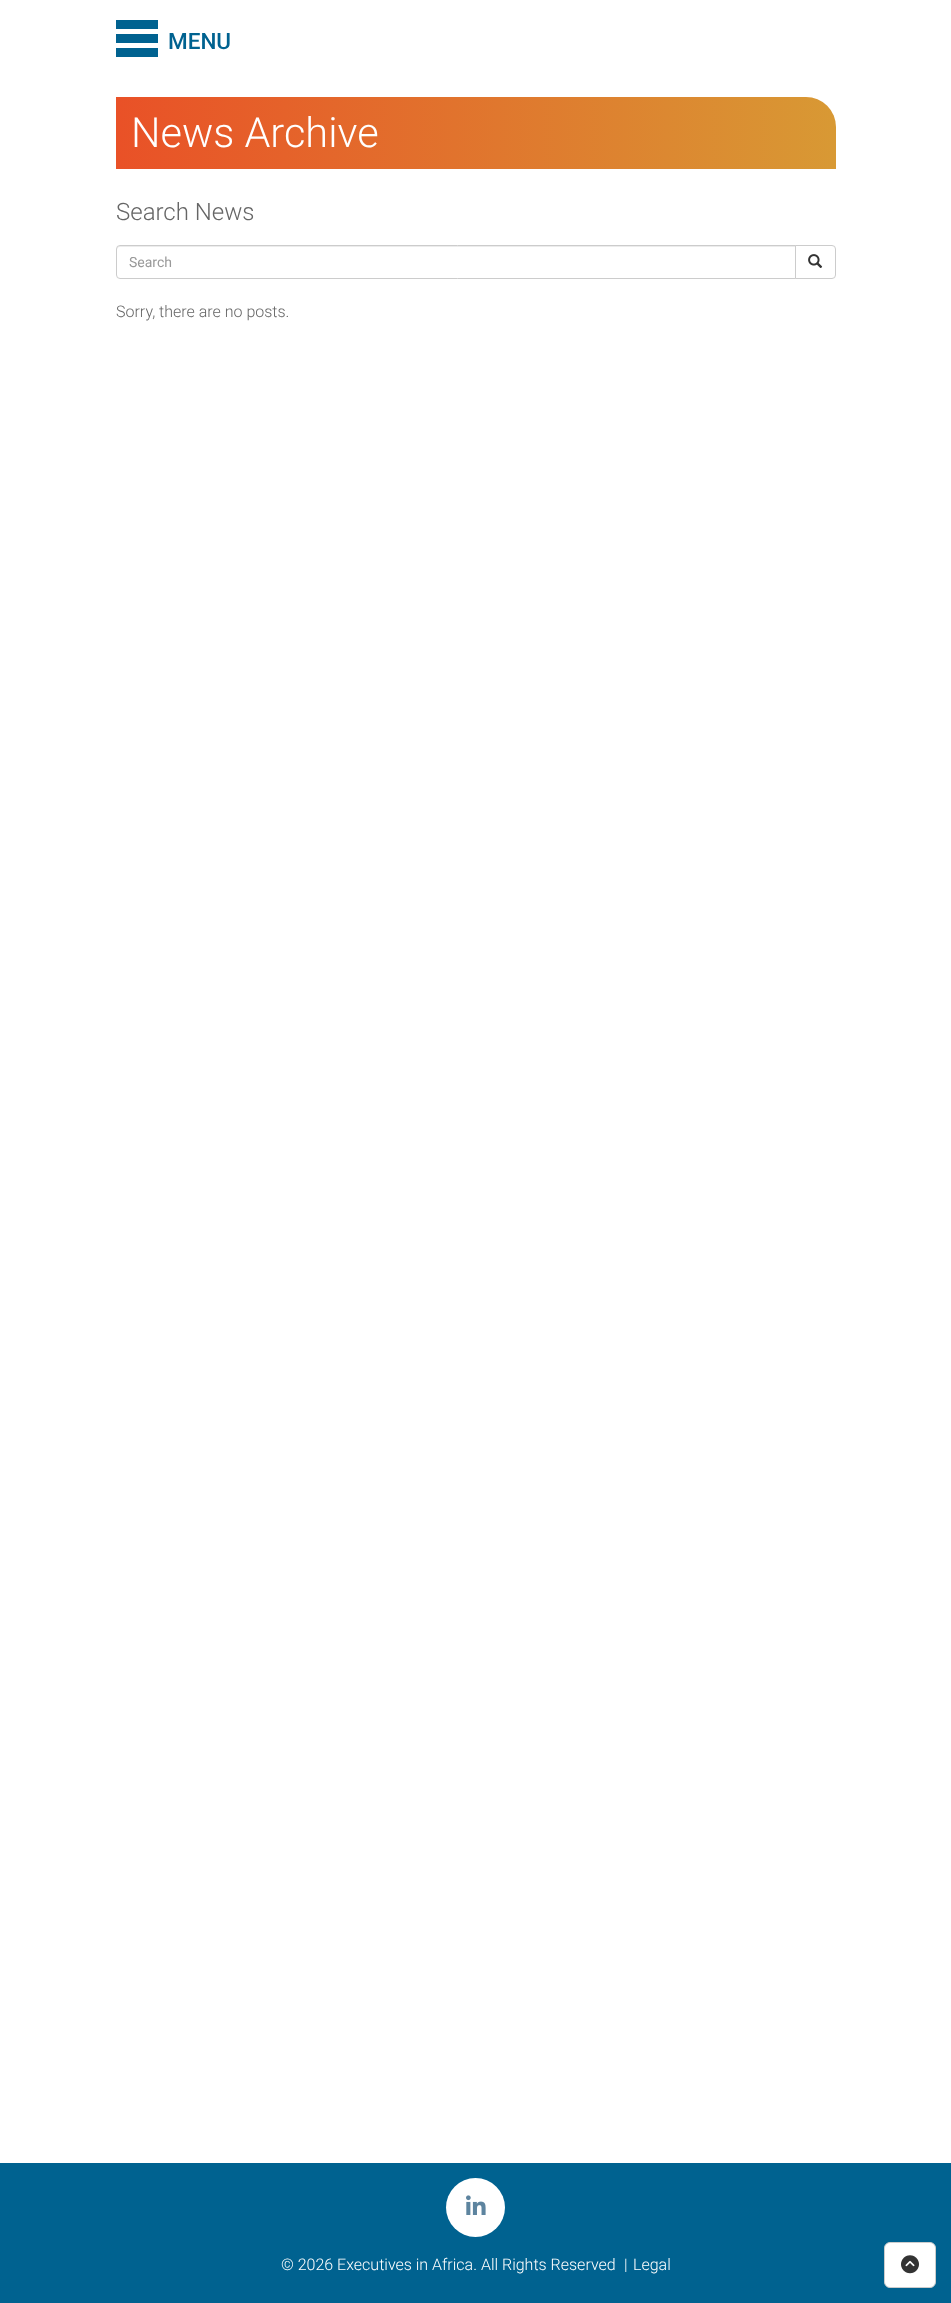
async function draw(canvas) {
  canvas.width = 951
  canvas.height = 2303
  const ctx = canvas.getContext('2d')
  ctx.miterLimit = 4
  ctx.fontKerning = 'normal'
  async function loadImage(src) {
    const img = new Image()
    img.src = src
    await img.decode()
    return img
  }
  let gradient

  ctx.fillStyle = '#fff'
  ctx.fillRect(0, 0, 951, 2303)
  ctx.fillStyle = '#006290'
  ctx.fillRect(116, 20, 42, 9)
  ctx.fillRect(116, 34, 42, 9)
  ctx.fillRect(116, 48, 42, 9)
  ctx.font = '500 22.5px Roboto'
  ctx.fillText('MENU', 168, 49)
  gradient = ctx.createLinearGradient(116, 133, 836, 133)
  gradient.addColorStop(0, '#e95127')
  gradient.addColorStop(1, '#d89934')
  ctx.fillStyle = gradient
  ctx.beginPath()
  ctx.roundRect(116, 97, 720, 72, [0, 30, 0, 0])
  ctx.fill()
  ctx.font = '300 41.5px Roboto'
  ctx.fillStyle = '#fff'
  ctx.fillText('News Archive', 131, 147)
  ctx.font = '300 24px Roboto'
  ctx.fillStyle = '#666'
  ctx.fillText('Search News', 116, 220)
  ctx.fillStyle = '#ececec'
  ctx.beginPath()
  ctx.moveTo(120, 247)
  ctx.lineTo(795, 247)
  ctx.lineTo(795, 246)
  ctx.lineTo(120, 246)
  ctx.bezierCurveTo(118, 246, 117, 247, 117, 249)
  ctx.lineTo(117, 250)
  ctx.bezierCurveTo(117, 248, 118, 247, 120, 247)
  ctx.closePath()
  ctx.fill()
  ctx.beginPath()
  ctx.roundRect(116.5, 245.5, 679, 33, [3.5, 0, 0, 3.5])
  ctx.strokeStyle = '#ccc'
  ctx.stroke()
  ctx.font = '14px Roboto'
  ctx.fillStyle = '#999'
  ctx.fillText('Search', 129, 267)
  ctx.fillStyle = '#fff'
  ctx.beginPath()
  ctx.roundRect(795.5, 245.5, 40, 33, [0, 3.5, 3.5, 0])
  ctx.fill()
  ctx.stroke()
  ctx.drawImage(await loadImage('image0.png'), 808, 254, 15, 14)
  ctx.font = '300 16px Roboto'
  ctx.fillStyle = '#666'
  ctx.fillText('Sorry, there are no posts.', 116, 317)
  ctx.fillStyle = '#006290'
  ctx.fillRect(0, 2163, 951, 140)
  ctx.fillStyle = '#fff'
  ctx.beginPath()
  ctx.arc(475.5, 2207.5, 29.5, 0, 2 * Math.PI)
  ctx.fill()
  ctx.drawImage(await loadImage('image1.png'), 466, 2195, 20, 20)
  ctx.fillText('© 2026 Executives in Africa. All Rights Reserved', 281, 2270)
  ctx.fillText('|', 624, 2270)
  ctx.fillText('Legal', 633, 2270)
  ctx.beginPath()
  ctx.roundRect(884.5, 2242.5, 51, 45, 5.5)
  ctx.fill()
  ctx.stroke()
  ctx.drawImage(await loadImage('image2.png'), 901, 2255, 18, 19)
}

draw(document.querySelector('canvas'))
